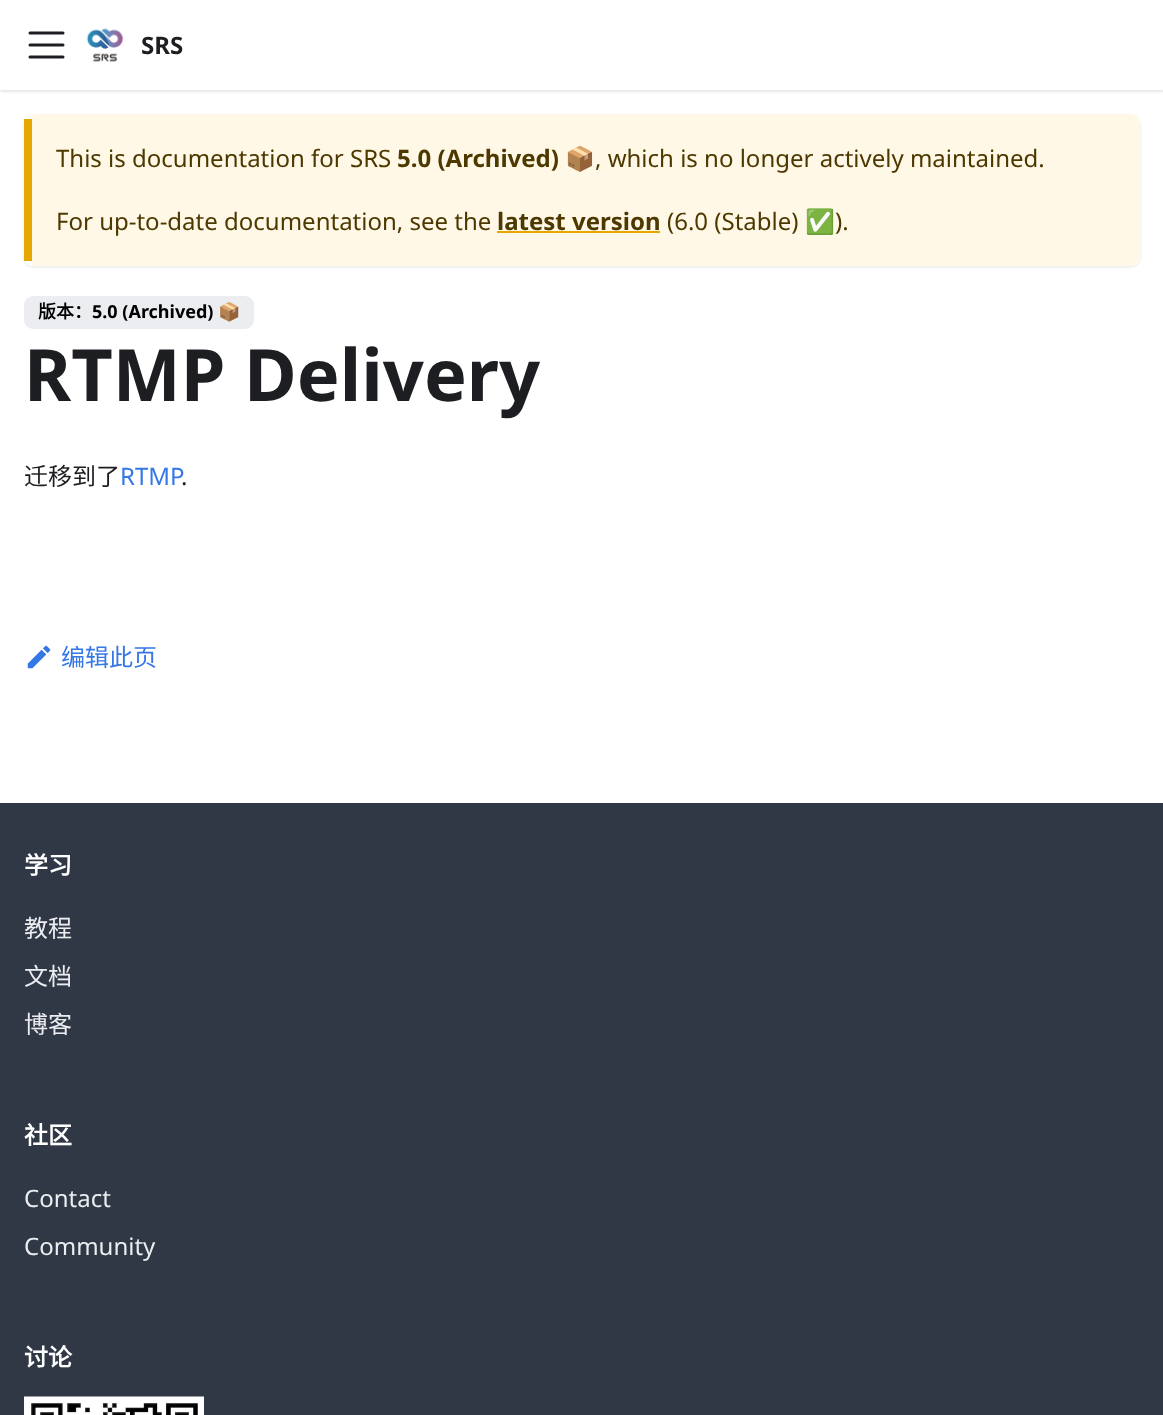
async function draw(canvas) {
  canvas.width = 1163
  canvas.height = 1415
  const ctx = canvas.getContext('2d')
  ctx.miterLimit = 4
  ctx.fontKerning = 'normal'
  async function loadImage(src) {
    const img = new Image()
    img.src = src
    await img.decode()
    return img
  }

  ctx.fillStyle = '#fff'
  ctx.fillRect(0, 0, 1163, 1415)
  ctx.save()
  ctx.beginPath()
  ctx.rect(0, 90, 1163, 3)
  ctx.clip()
  ctx.fillStyle = '#0000001a'
  ctx.filter = 'blur(1.5px)'
  ctx.beginPath()
  ctx.rect(0, 2, 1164, 90)
  ctx.fill()
  ctx.filter = 'none'
  ctx.restore()
  ctx.beginPath()
  ctx.moveTo(30, 33)
  ctx.lineTo(63, 33)
  ctx.moveTo(30, 45)
  ctx.lineTo(63, 45)
  ctx.moveTo(30, 57)
  ctx.lineTo(63, 57)
  ctx.strokeStyle = '#1c1e21'
  ctx.lineWidth = 3
  ctx.lineCap = 'round'
  ctx.stroke()
  ctx.drawImage(await loadImage('image0.png'), 86, 28, 38, 34)
  ctx.font = 'bold 24px Noto Sans'
  ctx.fillStyle = '#1c1e21'
  ctx.fillText('SRS', 141, 54)
  ctx.save()
  ctx.beginPath()
  ctx.moveTo(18, 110)
  ctx.lineTo(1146, 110)
  ctx.lineTo(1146, 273)
  ctx.lineTo(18, 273)
  ctx.closePath()
  ctx.moveTo(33, 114)
  ctx.lineTo(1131, 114)
  ctx.bezierCurveTo(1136, 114, 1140, 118, 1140, 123)
  ctx.lineTo(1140, 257)
  ctx.bezierCurveTo(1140, 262, 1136, 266, 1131, 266)
  ctx.lineTo(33, 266)
  ctx.bezierCurveTo(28, 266, 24, 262, 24, 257)
  ctx.lineTo(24, 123)
  ctx.bezierCurveTo(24, 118, 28, 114, 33, 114)
  ctx.closePath()
  ctx.clip('evenodd')
  ctx.fillStyle = '#0000001a'
  ctx.filter = 'blur(1.5px)'
  ctx.beginPath()
  ctx.roundRect(24, 116, 1116, 151, 9)
  ctx.fill()
  ctx.filter = 'none'
  ctx.restore()
  ctx.fillStyle = '#fff8e6'
  ctx.beginPath()
  ctx.moveTo(34, 114)
  ctx.lineTo(1130, 114)
  ctx.bezierCurveTo(1136, 114, 1140, 118, 1140, 124)
  ctx.lineTo(1140, 256)
  ctx.bezierCurveTo(1140, 261, 1136, 266, 1130, 266)
  ctx.lineTo(34, 266)
  ctx.bezierCurveTo(32, 266, 32, 261, 32, 256)
  ctx.lineTo(32, 124)
  ctx.bezierCurveTo(32, 118, 32, 114, 34, 114)
  ctx.closePath()
  ctx.fill()
  ctx.fillStyle = '#e6a700'
  ctx.fillRect(24, 119, 8, 142)
  ctx.font = '24px Noto Sans'
  ctx.fillStyle = '#4d3800'
  ctx.fillText('This is documentation for SRS', 56, 167)
  ctx.font = 'bold 24px Noto Sans'
  ctx.fillText('5.0 (Archived)', 397, 167)
  ctx.font = 'bold 24px Noto Color Emoji'
  ctx.fillText('📦', 565, 167)
  ctx.font = '24px Noto Sans'
  ctx.fillText(', which is no longer actively maintained.', 595, 167)
  ctx.fillText('For up-to-date documentation, see the', 56, 230)
  ctx.font = 'bold 24px Noto Sans'
  ctx.fillText('latest version', 497, 230)
  ctx.fillStyle = '#e6a700'
  ctx.fillRect(497, 231, 163, 2)
  ctx.font = '24px Noto Sans'
  ctx.fillStyle = '#4d3800'
  ctx.fillText('(6.0 (Stable)', 667, 230)
  ctx.font = '24px Noto Color Emoji'
  ctx.fillText('✅', 805, 230)
  ctx.font = '24px Noto Sans'
  ctx.fillText(').', 835, 230)
  ctx.fillStyle = '#ebedf0'
  ctx.beginPath()
  ctx.roundRect(25, 297, 228, 31, 8)
  ctx.fill()
  ctx.strokeStyle = '#ebedf0'
  ctx.lineWidth = 2
  ctx.stroke()
  ctx.font = 'bold 18px Noto Sans CJK SC'
  ctx.fillStyle = '#000'
  ctx.fillText('版本：', 38, 318)
  ctx.font = 'bold 18px Noto Sans'
  ctx.fillText('5.0 (Archived)', 92, 318)
  ctx.font = 'bold 18px Noto Color Emoji'
  ctx.fillText('📦', 218, 318)
  ctx.font = 'bold 72px Noto Sans'
  ctx.fillStyle = '#1c1e21'
  ctx.fillText('RTMP Delivery', 24, 401)
  ctx.font = '24px Noto Sans CJK SC'
  ctx.fillText('迁移到了', 24, 485)
  ctx.font = '24px Noto Sans'
  ctx.fillStyle = '#3578e5'
  ctx.fillText('RTMP', 120, 485)
  ctx.fillStyle = '#1c1e21'
  ctx.fillText('.', 181, 485)
  ctx.drawImage(await loadImage('image1.png'), 27, 645, 24, 24)
  ctx.font = '24px Noto Sans CJK SC'
  ctx.fillStyle = '#3578e5'
  ctx.fillText('编辑此页', 61, 666)
  ctx.fillStyle = '#303846'
  ctx.fillRect(0, 803, 1163, 612)
  ctx.font = 'bold 24px Noto Sans CJK SC'
  ctx.fillStyle = '#fff'
  ctx.fillText('学习', 24, 874)
  ctx.font = '24px Noto Sans CJK SC'
  ctx.fillStyle = '#ebedf0'
  ctx.fillText('教程', 24, 937)
  ctx.fillText('文档', 24, 985)
  ctx.fillText('博客', 24, 1033)
  ctx.font = 'bold 24px Noto Sans CJK SC'
  ctx.fillStyle = '#fff'
  ctx.fillText('社区', 24, 1144)
  ctx.font = '24px Noto Sans'
  ctx.fillStyle = '#ebedf0'
  ctx.fillText('Contact', 24, 1207)
  ctx.fillText('Community', 24, 1255)
  ctx.font = 'bold 24px Noto Sans CJK SC'
  ctx.fillStyle = '#fff'
  ctx.fillText('讨论', 24, 1366)
  ctx.drawImage(await loadImage('image2.png'), 24, 1396, 180, 19)
}

draw(document.querySelector('canvas'))
